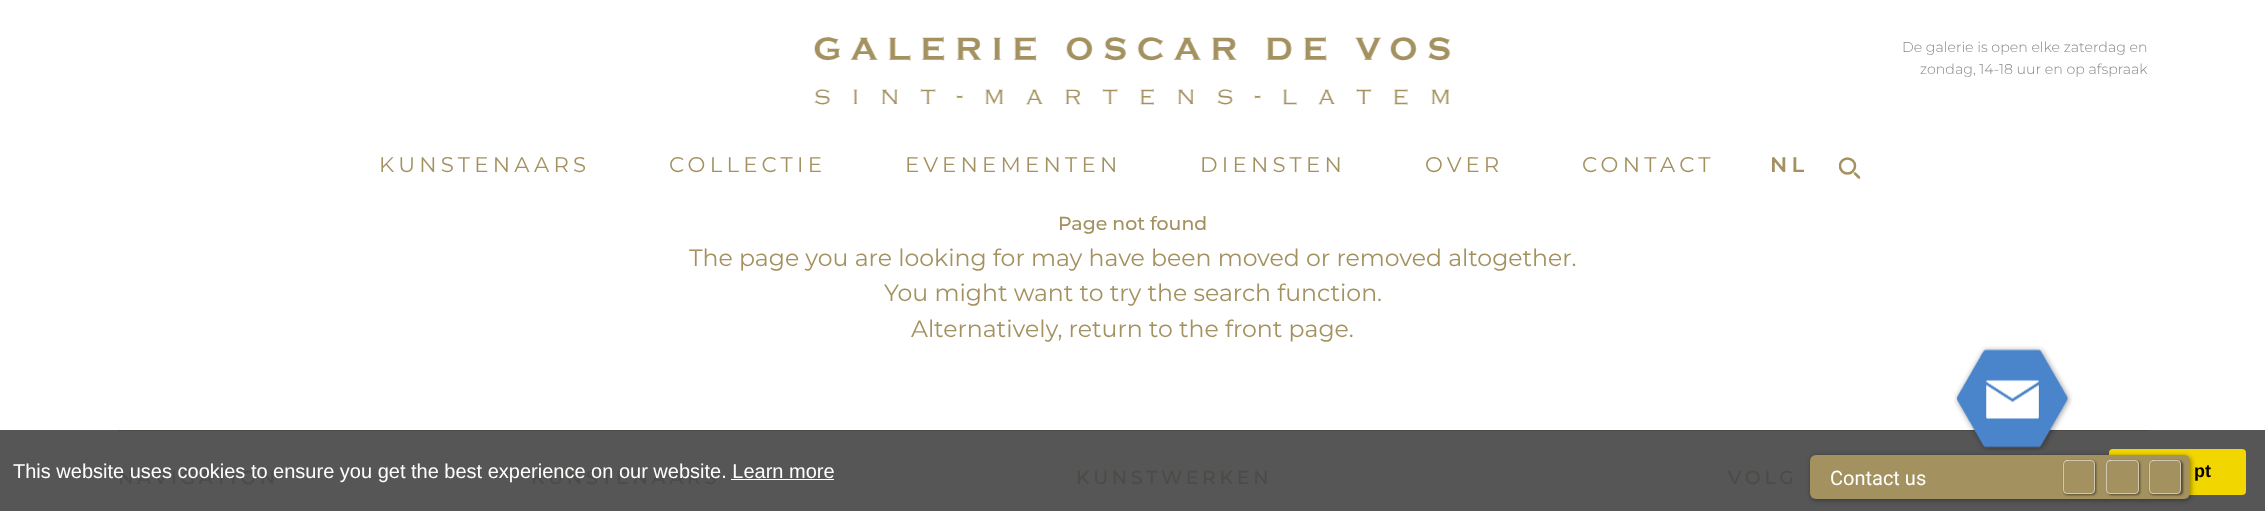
async function draw(canvas) {
  canvas.width = 2265
  canvas.height = 511
  const ctx = canvas.getContext('2d')
  ctx.miterLimit = 4
  ctx.fontKerning = 'normal'
  async function loadImage(src) {
    const img = new Image()
    img.src = src
    await img.decode()
    return img
  }

  ctx.fillStyle = '#fff'
  ctx.fillRect(0, 0, 2265, 511)
  ctx.fillStyle = '#565656'
  ctx.fillRect(0, 430, 2265, 81)
  ctx.drawImage(await loadImage('image0.png'), 814, 36, 636, 69)
  ctx.font = '300 14.2px Montserrat'
  ctx.fillStyle = '#888'
  ctx.fillText('De galerie is open elke zaterdag en', 1902, 52)
  ctx.fillText('zondag, 14-18 uur en op afspraak', 1920, 74)
  ctx.letterSpacing = '4.25px'
  ctx.font = '21.25px Montserrat'
  ctx.fillStyle = '#a3915f'
  ctx.fillText('KUNSTENAARS', 379, 172)
  ctx.fillText('COLLECTIE', 669, 172)
  ctx.fillText('EVENEMENTEN', 905, 172)
  ctx.fillText('DIENSTEN', 1200, 172)
  ctx.fillText('OVER', 1425, 172)
  ctx.fillText('CONTACT', 1582, 172)
  ctx.font = '600 21.25px Montserrat'
  ctx.fillText('NL', 1770, 172)
  ctx.save()
  ctx.beginPath()
  ctx.rect(1839, 156, 22, 23)
  ctx.clip()
  ctx.beginPath()
  ctx.arc(1847.5, 166, 7.5, 0, 2 * Math.PI)
  ctx.strokeStyle = '#a3915f'
  ctx.lineWidth = 2.5
  ctx.stroke()
  ctx.restore()
  ctx.beginPath()
  ctx.moveTo(1859, 177.5)
  ctx.lineTo(1855, 173.5)
  ctx.strokeStyle = '#a3915f'
  ctx.lineWidth = 2.5
  ctx.lineCap = 'round'
  ctx.stroke()
  ctx.letterSpacing = '0px'
  ctx.font = '500 18.9px Montserrat'
  ctx.fillText('Page not found', 1058, 230)
  ctx.font = '23.6px Montserrat'
  ctx.fillText('The page you are looking for may have been moved or removed altogether.', 689, 266)
  ctx.fillText('You might want to try the search function.', 884, 301)
  ctx.fillText('Alternatively, return to the front page.', 911, 337)
  ctx.fillStyle = '#4d4b46'
  ctx.fillRect(118, 430, 2030, 1)
  ctx.letterSpacing = '3.75px'
  ctx.font = '500 18.9px Montserrat'
  ctx.fillText('NAVIGATION', 118, 484)
  ctx.fillText('KUNSTENAARS', 531, 484)
  ctx.fillText('KUNSTWERKEN', 1076, 484)
  ctx.fillText('VOLG', 1728, 484)
  ctx.letterSpacing = '0px'
  ctx.font = '20px Liberation Sans'
  ctx.fillStyle = '#fff'
  ctx.fillText('This website uses cookies to ensure you get the best experience on our website. Learn more', 13, 478)
  ctx.fillRect(731, 479, 103, 1)
  ctx.fillStyle = '#f1d600'
  ctx.beginPath()
  ctx.roundRect(2109, 449, 137, 46, 4)
  ctx.fill()
  ctx.font = 'bold 18px Liberation Sans'
  ctx.fillStyle = '#000'
  ctx.fillText('pt', 2194, 477)
  ctx.fillStyle = '#00000066'
  ctx.filter = 'blur(2.5px)'
  ctx.beginPath()
  ctx.roundRect(1811, 456, 380, 44, 6)
  ctx.fill()
  ctx.filter = 'none'
  ctx.drawImage(await loadImage('image1.png'), 1954, 346, 119, 105)
  ctx.fillStyle = '#a3915f'
  ctx.beginPath()
  ctx.roundRect(1810, 455, 380, 44, 6)
  ctx.fill()
  ctx.font = '20px Roboto'
  ctx.fillStyle = '#fff'
  ctx.fillText('Contact us', 1830, 485)
  ctx.save()
  ctx.beginPath()
  ctx.moveTo(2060, 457)
  ctx.lineTo(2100, 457)
  ctx.lineTo(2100, 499)
  ctx.lineTo(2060, 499)
  ctx.closePath()
  ctx.moveTo(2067, 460)
  ctx.lineTo(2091, 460)
  ctx.bezierCurveTo(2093, 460, 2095, 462, 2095, 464)
  ctx.lineTo(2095, 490)
  ctx.bezierCurveTo(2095, 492, 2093, 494, 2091, 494)
  ctx.lineTo(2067, 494)
  ctx.bezierCurveTo(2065, 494, 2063, 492, 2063, 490)
  ctx.lineTo(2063, 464)
  ctx.bezierCurveTo(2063, 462, 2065, 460, 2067, 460)
  ctx.closePath()
  ctx.clip('evenodd')
  ctx.fillStyle = '#00000080'
  ctx.filter = 'blur(1px)'
  ctx.beginPath()
  ctx.roundRect(2064, 461, 32, 34, 4)
  ctx.fill()
  ctx.filter = 'none'
  ctx.restore()
  ctx.beginPath()
  ctx.roundRect(2063.5, 460.5, 31, 33, 3.5)
  ctx.strokeStyle = '#ffffff80'
  ctx.lineWidth = 1
  ctx.stroke()
  ctx.save()
  ctx.beginPath()
  ctx.moveTo(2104, 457)
  ctx.lineTo(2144, 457)
  ctx.lineTo(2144, 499)
  ctx.lineTo(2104, 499)
  ctx.closePath()
  ctx.moveTo(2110, 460)
  ctx.lineTo(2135, 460)
  ctx.bezierCurveTo(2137, 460, 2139, 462, 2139, 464)
  ctx.lineTo(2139, 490)
  ctx.bezierCurveTo(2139, 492, 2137, 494, 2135, 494)
  ctx.lineTo(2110, 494)
  ctx.bezierCurveTo(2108, 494, 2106, 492, 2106, 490)
  ctx.lineTo(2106, 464)
  ctx.bezierCurveTo(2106, 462, 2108, 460, 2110, 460)
  ctx.closePath()
  ctx.clip('evenodd')
  ctx.fillStyle = '#00000080'
  ctx.filter = 'blur(1px)'
  ctx.beginPath()
  ctx.roundRect(2108, 461, 32, 34, 4)
  ctx.fill()
  ctx.filter = 'none'
  ctx.restore()
  ctx.beginPath()
  ctx.roundRect(2106.5, 460.5, 32, 33, 3.5)
  ctx.stroke()
  ctx.save()
  ctx.beginPath()
  ctx.moveTo(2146, 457)
  ctx.lineTo(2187, 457)
  ctx.lineTo(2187, 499)
  ctx.lineTo(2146, 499)
  ctx.closePath()
  ctx.moveTo(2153, 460)
  ctx.lineTo(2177, 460)
  ctx.bezierCurveTo(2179, 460, 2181, 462, 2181, 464)
  ctx.lineTo(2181, 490)
  ctx.bezierCurveTo(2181, 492, 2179, 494, 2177, 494)
  ctx.lineTo(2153, 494)
  ctx.bezierCurveTo(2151, 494, 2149, 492, 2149, 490)
  ctx.lineTo(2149, 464)
  ctx.bezierCurveTo(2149, 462, 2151, 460, 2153, 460)
  ctx.closePath()
  ctx.clip('evenodd')
  ctx.fillStyle = '#00000080'
  ctx.filter = 'blur(1px)'
  ctx.beginPath()
  ctx.roundRect(2150, 461, 33, 34, 4)
  ctx.fill()
  ctx.filter = 'none'
  ctx.restore()
  ctx.beginPath()
  ctx.roundRect(2149.5, 460.5, 31, 33, 3.5)
  ctx.stroke()
}

draw(document.querySelector('canvas'))
